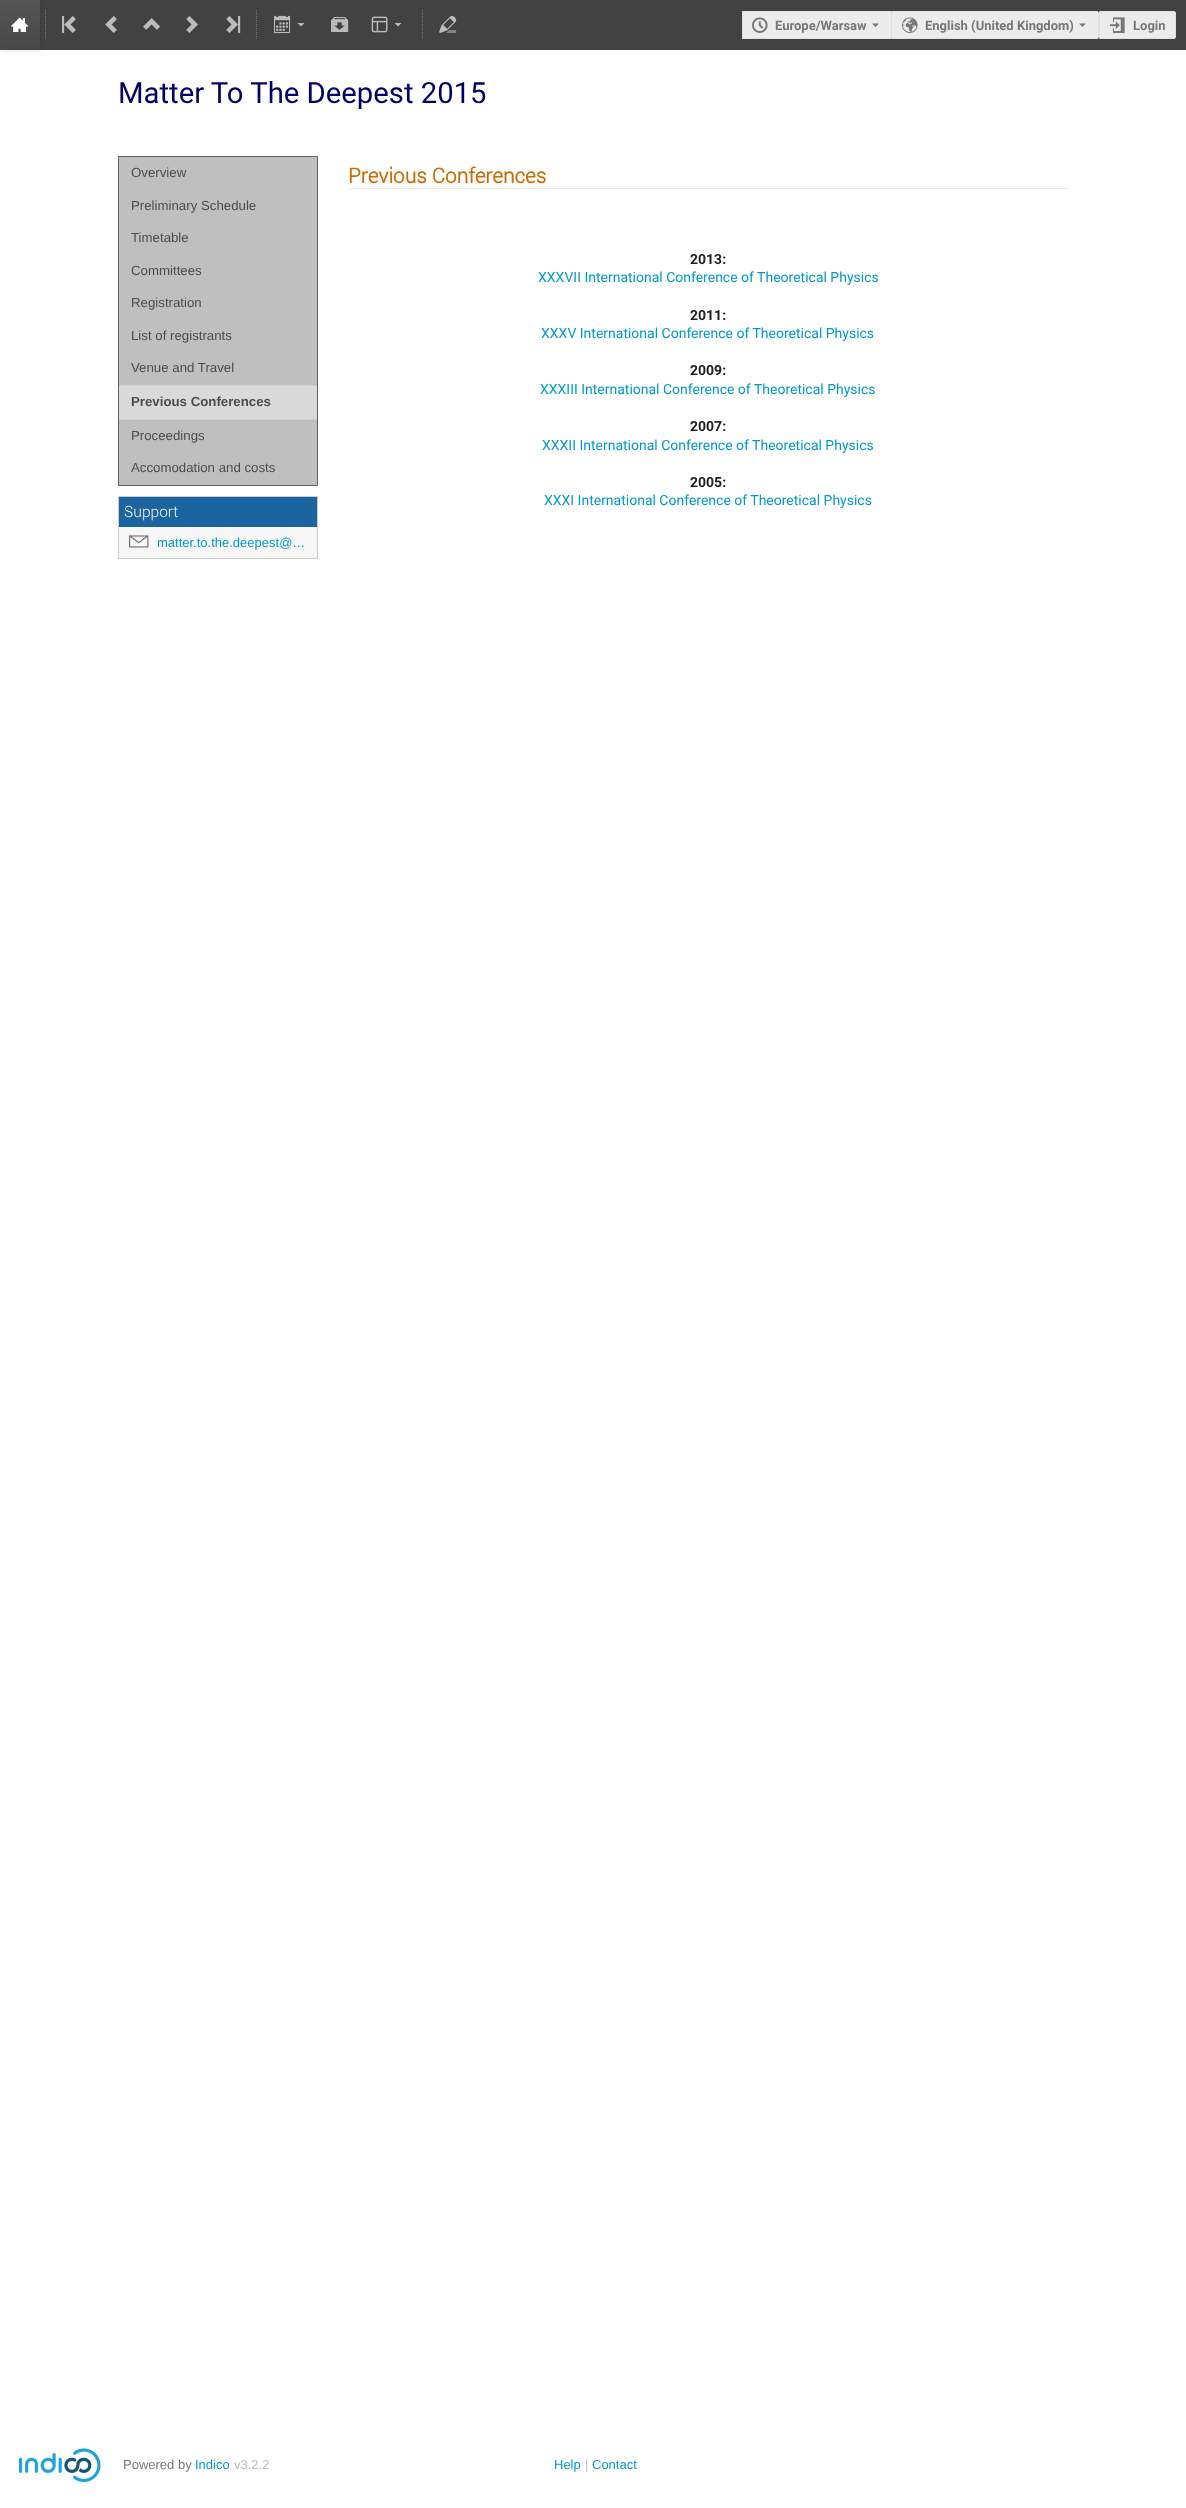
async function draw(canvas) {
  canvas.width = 1186
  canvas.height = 2508
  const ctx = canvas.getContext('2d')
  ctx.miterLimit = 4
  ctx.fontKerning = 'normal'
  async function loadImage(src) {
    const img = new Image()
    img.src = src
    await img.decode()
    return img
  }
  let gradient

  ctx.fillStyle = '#fff'
  ctx.fillRect(0, 0, 1186, 2508)
  ctx.fillStyle = '#424242'
  ctx.fillRect(40, 0, 1146, 50)
  ctx.fillStyle = '#1414141a'
  ctx.filter = 'blur(2px)'
  ctx.beginPath()
  ctx.rect(1, 1, 40, 50)
  ctx.fill()
  ctx.filter = 'none'
  gradient = ctx.createLinearGradient(20, 0, 20, 50)
  gradient.addColorStop(0, '#555')
  gradient.addColorStop(1, '#484848')
  ctx.fillStyle = gradient
  ctx.fillRect(0, 0, 40, 50)
  ctx.drawImage(await loadImage('image0.png'), 11, 17, 18, 15)
  ctx.beginPath()
  ctx.moveTo(45.5, 10)
  ctx.lineTo(45.5, 40)
  ctx.strokeStyle = '#777'
  ctx.setLineDash([1, 1])
  ctx.stroke()
  ctx.drawImage(await loadImage('image1.png'), 62, 15, 14, 19)
  ctx.drawImage(await loadImage('image2.png'), 105, 16, 12, 17)
  ctx.drawImage(await loadImage('image3.png'), 143, 18, 17, 12)
  ctx.drawImage(await loadImage('image4.png'), 186, 16, 12, 17)
  ctx.drawImage(await loadImage('image5.png'), 226, 15, 15, 19)
  ctx.beginPath()
  ctx.moveTo(256.5, 10)
  ctx.lineTo(256.5, 40)
  ctx.stroke()
  ctx.drawImage(await loadImage('image6.png'), 274, 15, 17, 19)
  ctx.fillStyle = '#bbb'
  ctx.beginPath()
  ctx.moveTo(297.5, 23)
  ctx.lineTo(301, 26.5)
  ctx.lineTo(304.5, 23)
  ctx.closePath()
  ctx.fill()
  ctx.drawImage(await loadImage('image7.png'), 331, 17, 18, 15)
  ctx.drawImage(await loadImage('image8.png'), 371, 16, 17, 17)
  ctx.beginPath()
  ctx.moveTo(394.5, 23)
  ctx.lineTo(398, 26.5)
  ctx.lineTo(401.5, 23)
  ctx.closePath()
  ctx.fill()
  ctx.beginPath()
  ctx.moveTo(422.5, 10)
  ctx.lineTo(422.5, 40)
  ctx.stroke()
  ctx.drawImage(await loadImage('image9.png'), 439, 16, 18, 17)
  ctx.fillStyle = '#ececec'
  ctx.fillRect(743, 12, 148, 26)
  ctx.fillStyle = '#dfdfdf'
  ctx.fillRect(742, 11, 149, 1)
  ctx.fillRect(742, 38, 149, 1)
  ctx.fillRect(742, 11, 1, 28)
  ctx.drawImage(await loadImage('image10.png'), 752, 17, 16, 16)
  ctx.font = 'bold 13px Roboto'
  ctx.fillStyle = '#777'
  ctx.fillText('Europe/Warsaw', 775, 30)
  ctx.beginPath()
  ctx.moveTo(872, 23.5)
  ctx.lineTo(875.5, 27)
  ctx.lineTo(879, 23.5)
  ctx.closePath()
  ctx.fill()
  ctx.fillStyle = '#ececec'
  ctx.beginPath()
  ctx.roundRect(891.5, 11.5, 207, 27, [0, 1.5, 1.5, 0])
  ctx.fill()
  ctx.strokeStyle = '#dfdfdf'
  ctx.setLineDash([])
  ctx.stroke()
  ctx.drawImage(await loadImage('image11.png'), 902, 17, 16, 16)
  ctx.fillStyle = '#777'
  ctx.fillText('English (United Kingdom)', 925, 30)
  ctx.beginPath()
  ctx.moveTo(1079, 23.5)
  ctx.lineTo(1082.5, 27)
  ctx.lineTo(1086, 23.5)
  ctx.closePath()
  ctx.fill()
  ctx.fillStyle = '#ececec'
  ctx.beginPath()
  ctx.roundRect(1099.5, 11.5, 76, 27, [0, 1.5, 1.5, 0])
  ctx.fill()
  ctx.stroke()
  ctx.drawImage(await loadImage('image12.png'), 1110, 17, 15, 16)
  ctx.fillStyle = '#777'
  ctx.fillText('Login', 1133, 30)
  ctx.font = '29.3px Roboto'
  ctx.fillStyle = '#006'
  ctx.fillText('Matter To The Deepest 2015', 118, 103)
  ctx.fillStyle = '#bfbfbf'
  ctx.beginPath()
  ctx.rect(118.5, 156.5, 199, 329)
  ctx.fill()
  ctx.strokeStyle = '#64615a'
  ctx.stroke()
  ctx.font = '13.25px "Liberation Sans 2"'
  ctx.fillStyle = '#4e4c46'
  ctx.fillText('Overview', 131, 177)
  ctx.fillText('Preliminary Schedule', 131, 210)
  ctx.fillText('Timetable', 131, 242)
  ctx.fillText('Committees', 131, 275)
  ctx.fillText('Registration', 131, 307)
  ctx.fillText('List of registrants', 131, 340)
  ctx.fillText('Venue and Travel', 131, 372)
  ctx.fillStyle = '#dadada'
  ctx.fillRect(119, 386, 198, 33)
  ctx.fillStyle = '#d0d0d0'
  ctx.fillRect(119, 385, 198, 1)
  ctx.fillRect(119, 419, 198, 1)
  ctx.font = 'bold 13.25px Liberation Sans'
  ctx.fillStyle = '#4e4c46'
  ctx.fillText('Previous Conferences', 131, 406)
  ctx.font = '13.25px "Liberation Sans 2"'
  ctx.fillText('Proceedings', 131, 440)
  ctx.fillText('Accomodation and costs', 131, 472)
  ctx.fillStyle = '#f6f6f6'
  ctx.fillRect(119, 527, 198, 31)
  ctx.strokeStyle = '#ccc'
  ctx.strokeRect(118.5, 496.5, 199, 62)
  ctx.fillStyle = '#1a64a0'
  ctx.fillRect(119, 497, 198, 30)
  ctx.font = '300 15.5px Roboto'
  ctx.fillStyle = '#f3f3f3'
  ctx.fillText('Support', 124, 517)
  ctx.drawImage(await loadImage('image13.png'), 129, 535, 20, 13)
  ctx.font = '13px Liberation Sans'
  ctx.fillStyle = '#09c'
  ctx.fillText('matter.to.the.deepest@…', 157, 547)
  ctx.fillStyle = '#ebebeb'
  ctx.fillRect(348, 188, 720, 1)
  ctx.font = 'bold 20.75px "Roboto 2"'
  ctx.fillStyle = '#cb6d04'
  ctx.fillText('Previous Conferences', 348, 183)
  ctx.font = 'bold 14px Roboto'
  ctx.fillStyle = '#212121'
  ctx.fillText('2013:', 690, 264)
  ctx.font = '14px Roboto'
  ctx.fillStyle = '#09c'
  ctx.fillText('XXXVII International Conference of Theoretical Physics', 538, 282)
  ctx.font = 'bold 14px Roboto'
  ctx.fillStyle = '#212121'
  ctx.fillText('2011:', 690, 320)
  ctx.font = '14px Roboto'
  ctx.fillStyle = '#09c'
  ctx.fillText('XXXV International Conference of Theoretical Physics', 541, 338)
  ctx.font = 'bold 14px Roboto'
  ctx.fillStyle = '#212121'
  ctx.fillText('2009:', 690, 375)
  ctx.font = '14px Roboto'
  ctx.fillStyle = '#09c'
  ctx.fillText('XXXIII International Conference of Theoretical Physics', 540, 394)
  ctx.font = 'bold 14px Roboto'
  ctx.fillStyle = '#212121'
  ctx.fillText('2007:', 690, 431)
  ctx.font = '14px Roboto'
  ctx.fillStyle = '#09c'
  ctx.fillText('XXXII International Conference of Theoretical Physics', 542, 450)
  ctx.font = 'bold 14px Roboto'
  ctx.fillStyle = '#212121'
  ctx.fillText('2005:', 690, 487)
  ctx.font = '14px Roboto'
  ctx.fillStyle = '#09c'
  ctx.fillText('XXXI International Conference of Theoretical Physics', 544, 505)
  ctx.drawImage(await loadImage('image14.png'), 19, 2448, 82, 34)
  ctx.font = '13px Liberation Sans'
  ctx.fillStyle = '#777'
  ctx.fillText('Powered by', 123, 2469)
  ctx.fillStyle = '#09c'
  ctx.fillText('Indico', 195, 2469)
  ctx.fillStyle = '#bbb'
  ctx.fillText('v3.2.2', 234, 2469)
  ctx.fillStyle = '#09c'
  ctx.fillText('Help', 554, 2469)
  ctx.fillStyle = '#bbb'
  ctx.fillText('|', 585, 2469)
  ctx.fillStyle = '#09c'
  ctx.fillText('Contact', 592, 2469)
}

draw(document.querySelector('canvas'))
